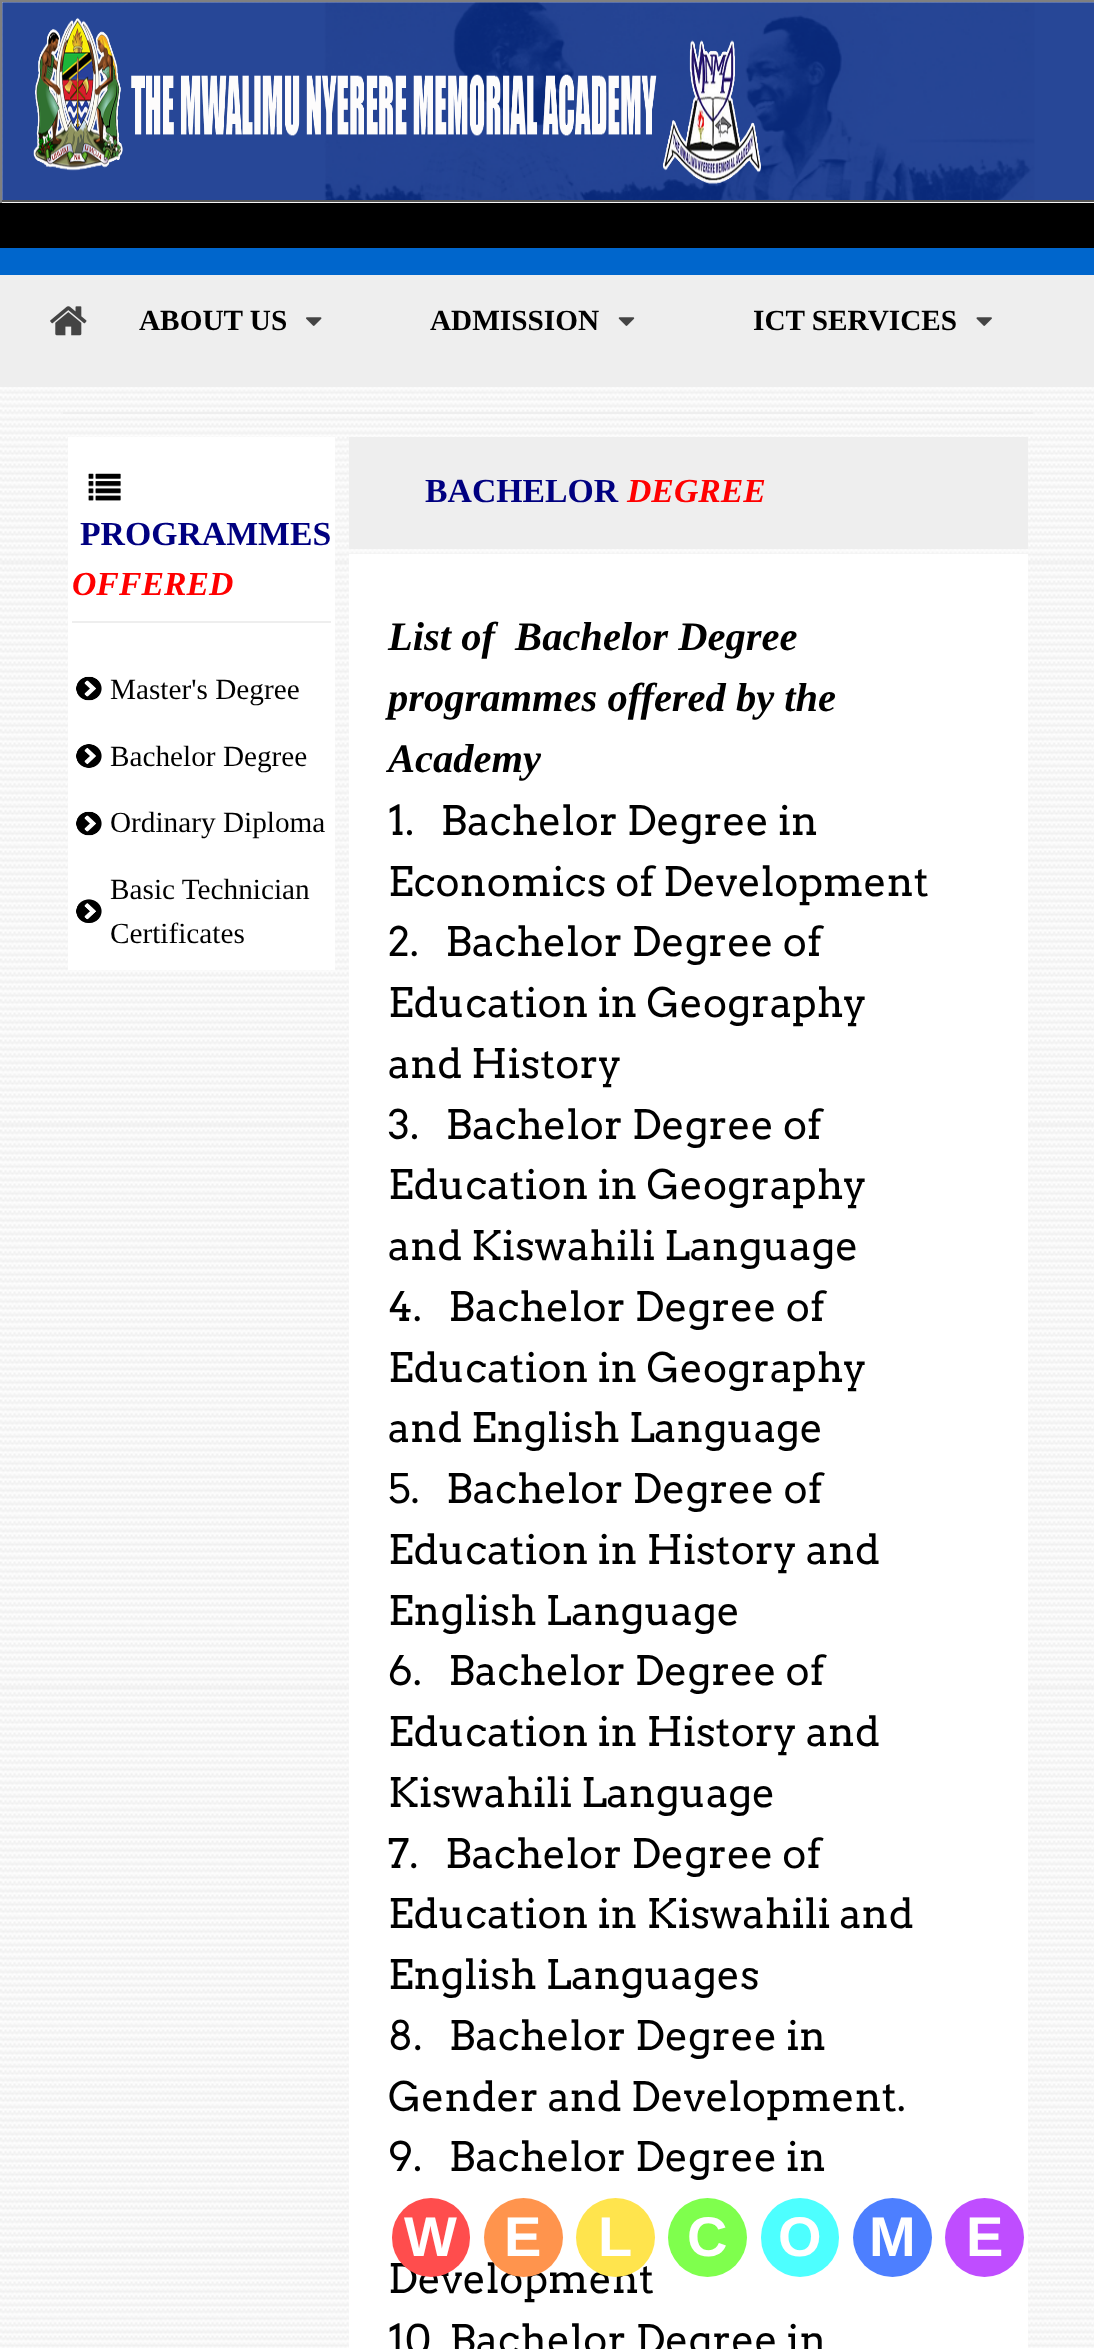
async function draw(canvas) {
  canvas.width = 1094
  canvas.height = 2349
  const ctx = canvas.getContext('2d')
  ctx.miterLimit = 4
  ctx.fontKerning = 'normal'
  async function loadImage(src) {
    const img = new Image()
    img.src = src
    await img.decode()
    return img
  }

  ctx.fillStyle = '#fff'
  ctx.fillRect(0, 0, 1094, 2349)
  ctx.drawImage(await loadImage('image0.png'), 0, 2, 1094, 2346)
  ctx.drawImage(await loadImage('image1.png'), 2, 2, 1092, 198)
  ctx.fillStyle = '#808080'
  ctx.fillRect(0, 0, 1094, 2)
  ctx.fillStyle = '#555'
  ctx.fillRect(0, 200, 1094, 2)
  ctx.fillStyle = '#808080'
  ctx.fillRect(0, 0, 2, 203)
  ctx.drawImage(await loadImage('image2.png'), 33, 17, 728, 167)
  ctx.fillStyle = '#000'
  ctx.fillRect(0, 203, 1094, 45)
  ctx.fillStyle = '#06c'
  ctx.fillRect(0, 248, 1094, 27)
  ctx.fillStyle = '#eee'
  ctx.fillRect(0, 275, 1094, 112)
  ctx.drawImage(await loadImage('image3.png'), 50, 306, 37, 30)
  ctx.font = 'bold 29.25px Liberation Serif'
  ctx.fillStyle = '#000'
  ctx.fillText('ABOUT US', 139, 330)
  ctx.drawImage(await loadImage('image4.png'), 306, 317, 16, 9)
  ctx.fillText('ADMISSION', 430, 330)
  ctx.drawImage(await loadImage('image5.png'), 618, 317, 17, 9)
  ctx.fillText('ICT SERVICES', 753, 330)
  ctx.drawImage(await loadImage('image6.png'), 976, 317, 16, 9)
  ctx.fillStyle = '#eee'
  ctx.fillRect(63, 412, 970, 2)
  ctx.fillStyle = '#fff'
  ctx.fillRect(68, 437, 267, 533)
  ctx.drawImage(await loadImage('image7.png'), 88, 473, 33, 28)
  ctx.font = 'bold 33.75px Liberation Serif'
  ctx.fillStyle = '#000080'
  ctx.fillText('PROGRAMMES', 80, 545)
  ctx.font = 'italic bold 33.75px Liberation Serif'
  ctx.fillStyle = '#f00'
  ctx.fillText('OFFERED', 72, 595)
  ctx.fillStyle = '#eee'
  ctx.fillRect(72, 621, 259, 2)
  ctx.drawImage(await loadImage('image8.png'), 76, 676, 26, 25)
  ctx.font = '29.25px Liberation Serif'
  ctx.fillStyle = '#000'
  ctx.fillText('Master\'s Degree', 110, 699)
  ctx.drawImage(await loadImage('image9.png'), 76, 744, 26, 24)
  ctx.fillText('Bachelor Degree', 110, 766)
  ctx.drawImage(await loadImage('image8.png'), 76, 811, 26, 25)
  ctx.fillText('Ordinary Diploma', 110, 832)
  ctx.drawImage(await loadImage('image10.png'), 76, 899, 26, 24)
  ctx.fillText('Basic Technician', 110, 899)
  ctx.fillText('Certificates', 110, 943)
  ctx.fillStyle = '#eee'
  ctx.fillRect(349, 437, 679, 112)
  ctx.font = 'bold 33.75px Liberation Serif'
  ctx.fillStyle = '#000080'
  ctx.fillText('BACHELOR', 425, 502)
  ctx.font = 'italic bold 33.75px Liberation Serif'
  ctx.fillStyle = '#f00'
  ctx.fillText('DEGREE', 627, 502)
  ctx.fillStyle = '#fff'
  ctx.fillRect(349, 554, 679, 1794)
  ctx.font = 'italic bold 40.5px Liberation Serif'
  ctx.fillStyle = '#000'
  ctx.fillText('List of  Bachelor Degree', 388, 650)
  ctx.fillText('programmes offered by the', 388, 711)
  ctx.fillText('Academy', 388, 772)
  ctx.font = '40.5px Arvo'
  ctx.fillText('1.   Bachelor Degree in', 388, 835)
  ctx.fillText('Economics of Development', 388, 896)
  ctx.fillText('2.   Bachelor Degree of', 388, 956)
  ctx.fillText('Education in Geography', 388, 1017)
  ctx.fillText('and History', 388, 1078)
  ctx.fillText('3.   Bachelor Degree of', 388, 1139)
  ctx.fillText('Education in Geography', 388, 1199)
  ctx.fillText('and Kiswahili Language', 388, 1260)
  ctx.fillText('4.   Bachelor Degree of', 388, 1321)
  ctx.fillText('Education in Geography', 388, 1382)
  ctx.fillText('and English Language', 388, 1442)
  ctx.fillText('5.   Bachelor Degree of', 388, 1503)
  ctx.fillText('Education in History and', 388, 1564)
  ctx.fillText('English Language', 388, 1625)
  ctx.fillText('6.   Bachelor Degree of', 388, 1685)
  ctx.fillText('Education in History and', 388, 1746)
  ctx.fillText('Kiswahili Language', 388, 1807)
  ctx.fillText('7.   Bachelor Degree of', 388, 1868)
  ctx.fillText('Education in Kiswahili and', 388, 1928)
  ctx.fillText('English Languages', 388, 1989)
  ctx.fillText('8.   Bachelor Degree in', 388, 2050)
  ctx.fillText('Gender and Development.', 388, 2111)
  ctx.fillText('9.   Bachelor Degree in', 388, 2171)
  ctx.fillText('Development', 388, 2293)
  ctx.fillText('10. Bachelor Degree in', 388, 2354)
  ctx.fillStyle = '#ff4d4d'
  ctx.beginPath()
  ctx.roundRect(392, 2198, 78, 79, 39)
  ctx.fill()
  ctx.font = 'bold 56px Liberation Sans'
  ctx.fillStyle = '#fff'
  ctx.fillText('W', 404, 2256)
  ctx.fillStyle = '#ff944d'
  ctx.beginPath()
  ctx.arc(523.5, 2237.5, 39.5, 0, 2 * Math.PI)
  ctx.fill()
  ctx.fillStyle = '#fff'
  ctx.fillText('E', 504, 2256)
  ctx.fillStyle = '#ffe44d'
  ctx.beginPath()
  ctx.arc(615.5, 2237.5, 39.5, 0, 2 * Math.PI)
  ctx.fill()
  ctx.fillStyle = '#fff'
  ctx.fillText('L', 598, 2256)
  ctx.fillStyle = '#7fff4d'
  ctx.beginPath()
  ctx.arc(707.5, 2237.5, 39.5, 0, 2 * Math.PI)
  ctx.fill()
  ctx.fillStyle = '#fff'
  ctx.fillText('C', 687, 2256)
  ctx.fillStyle = '#4dffff'
  ctx.beginPath()
  ctx.roundRect(761, 2198, 78, 79, 39)
  ctx.fill()
  ctx.fillStyle = '#fff'
  ctx.fillText('O', 778, 2256)
  ctx.fillStyle = '#4d7fff'
  ctx.beginPath()
  ctx.arc(892.5, 2237.5, 39.5, 0, 2 * Math.PI)
  ctx.fill()
  ctx.fillStyle = '#fff'
  ctx.fillText('M', 869, 2256)
  ctx.fillStyle = '#bf4dff'
  ctx.beginPath()
  ctx.arc(984.5, 2237.5, 39.5, 0, 2 * Math.PI)
  ctx.fill()
  ctx.fillStyle = '#fff'
  ctx.fillText('E', 966, 2256)
}

draw(document.querySelector('canvas'))
